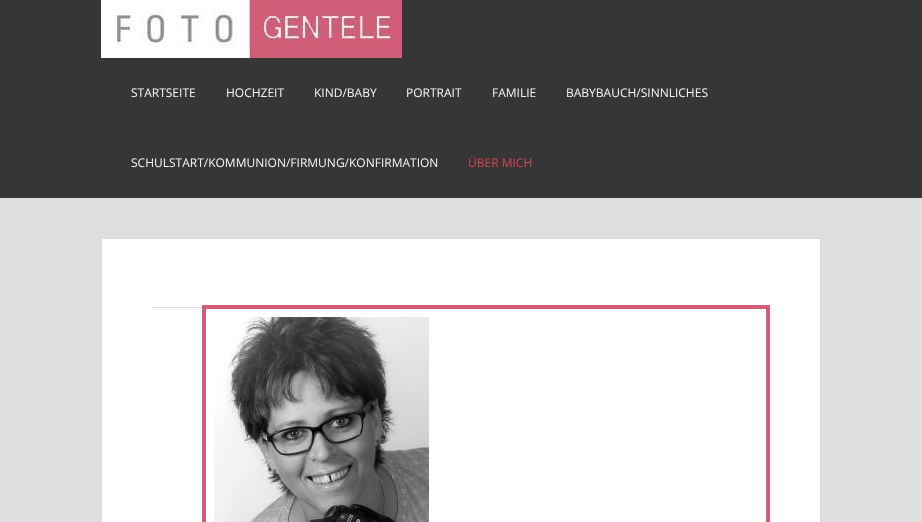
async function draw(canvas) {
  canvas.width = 922
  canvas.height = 522
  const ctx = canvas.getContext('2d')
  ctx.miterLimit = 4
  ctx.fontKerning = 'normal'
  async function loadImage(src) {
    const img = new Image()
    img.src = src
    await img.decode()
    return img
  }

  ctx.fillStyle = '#dfdfdf'
  ctx.fillRect(0, 0, 922, 522)
  ctx.fillStyle = '#363636'
  ctx.fillRect(0, 0, 922, 198)
  ctx.drawImage(await loadImage('image0.png'), 101, 0, 301, 58)
  ctx.font = '12px Open Sans'
  ctx.fillStyle = '#f5f7fa'
  ctx.fillText('STARTSEITE', 131, 97)
  ctx.fillText('HOCHZEIT', 226, 97)
  ctx.fillText('KIND/BABY', 314, 97)
  ctx.fillText('PORTRAIT', 406, 97)
  ctx.fillText('FAMILIE', 492, 97)
  ctx.fillText('BABYBAUCH/SINNLICHES', 566, 97)
  ctx.fillText('SCHULSTART/KOMMUNION/FIRMUNG/KONFIRMATION', 131, 167)
  ctx.fillStyle = '#da4453'
  ctx.fillText('ÜBER MICH', 468, 167)
  ctx.fillStyle = '#fff'
  ctx.beginPath()
  ctx.rect(101.5, 238.5, 719, 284)
  ctx.fill()
  ctx.strokeStyle = '#dadada'
  ctx.stroke()
  ctx.fillStyle = '#ddd'
  ctx.fillRect(152, 307, 52, 1)
  ctx.fillStyle = '#d35d77'
  ctx.fillRect(202, 305, 568, 4)
  ctx.fillRect(766, 305, 4, 217)
  ctx.fillRect(202, 305, 4, 217)
  ctx.drawImage(await loadImage('image1.png'), 214, 317, 215, 205)
}

draw(document.querySelector('canvas'))
